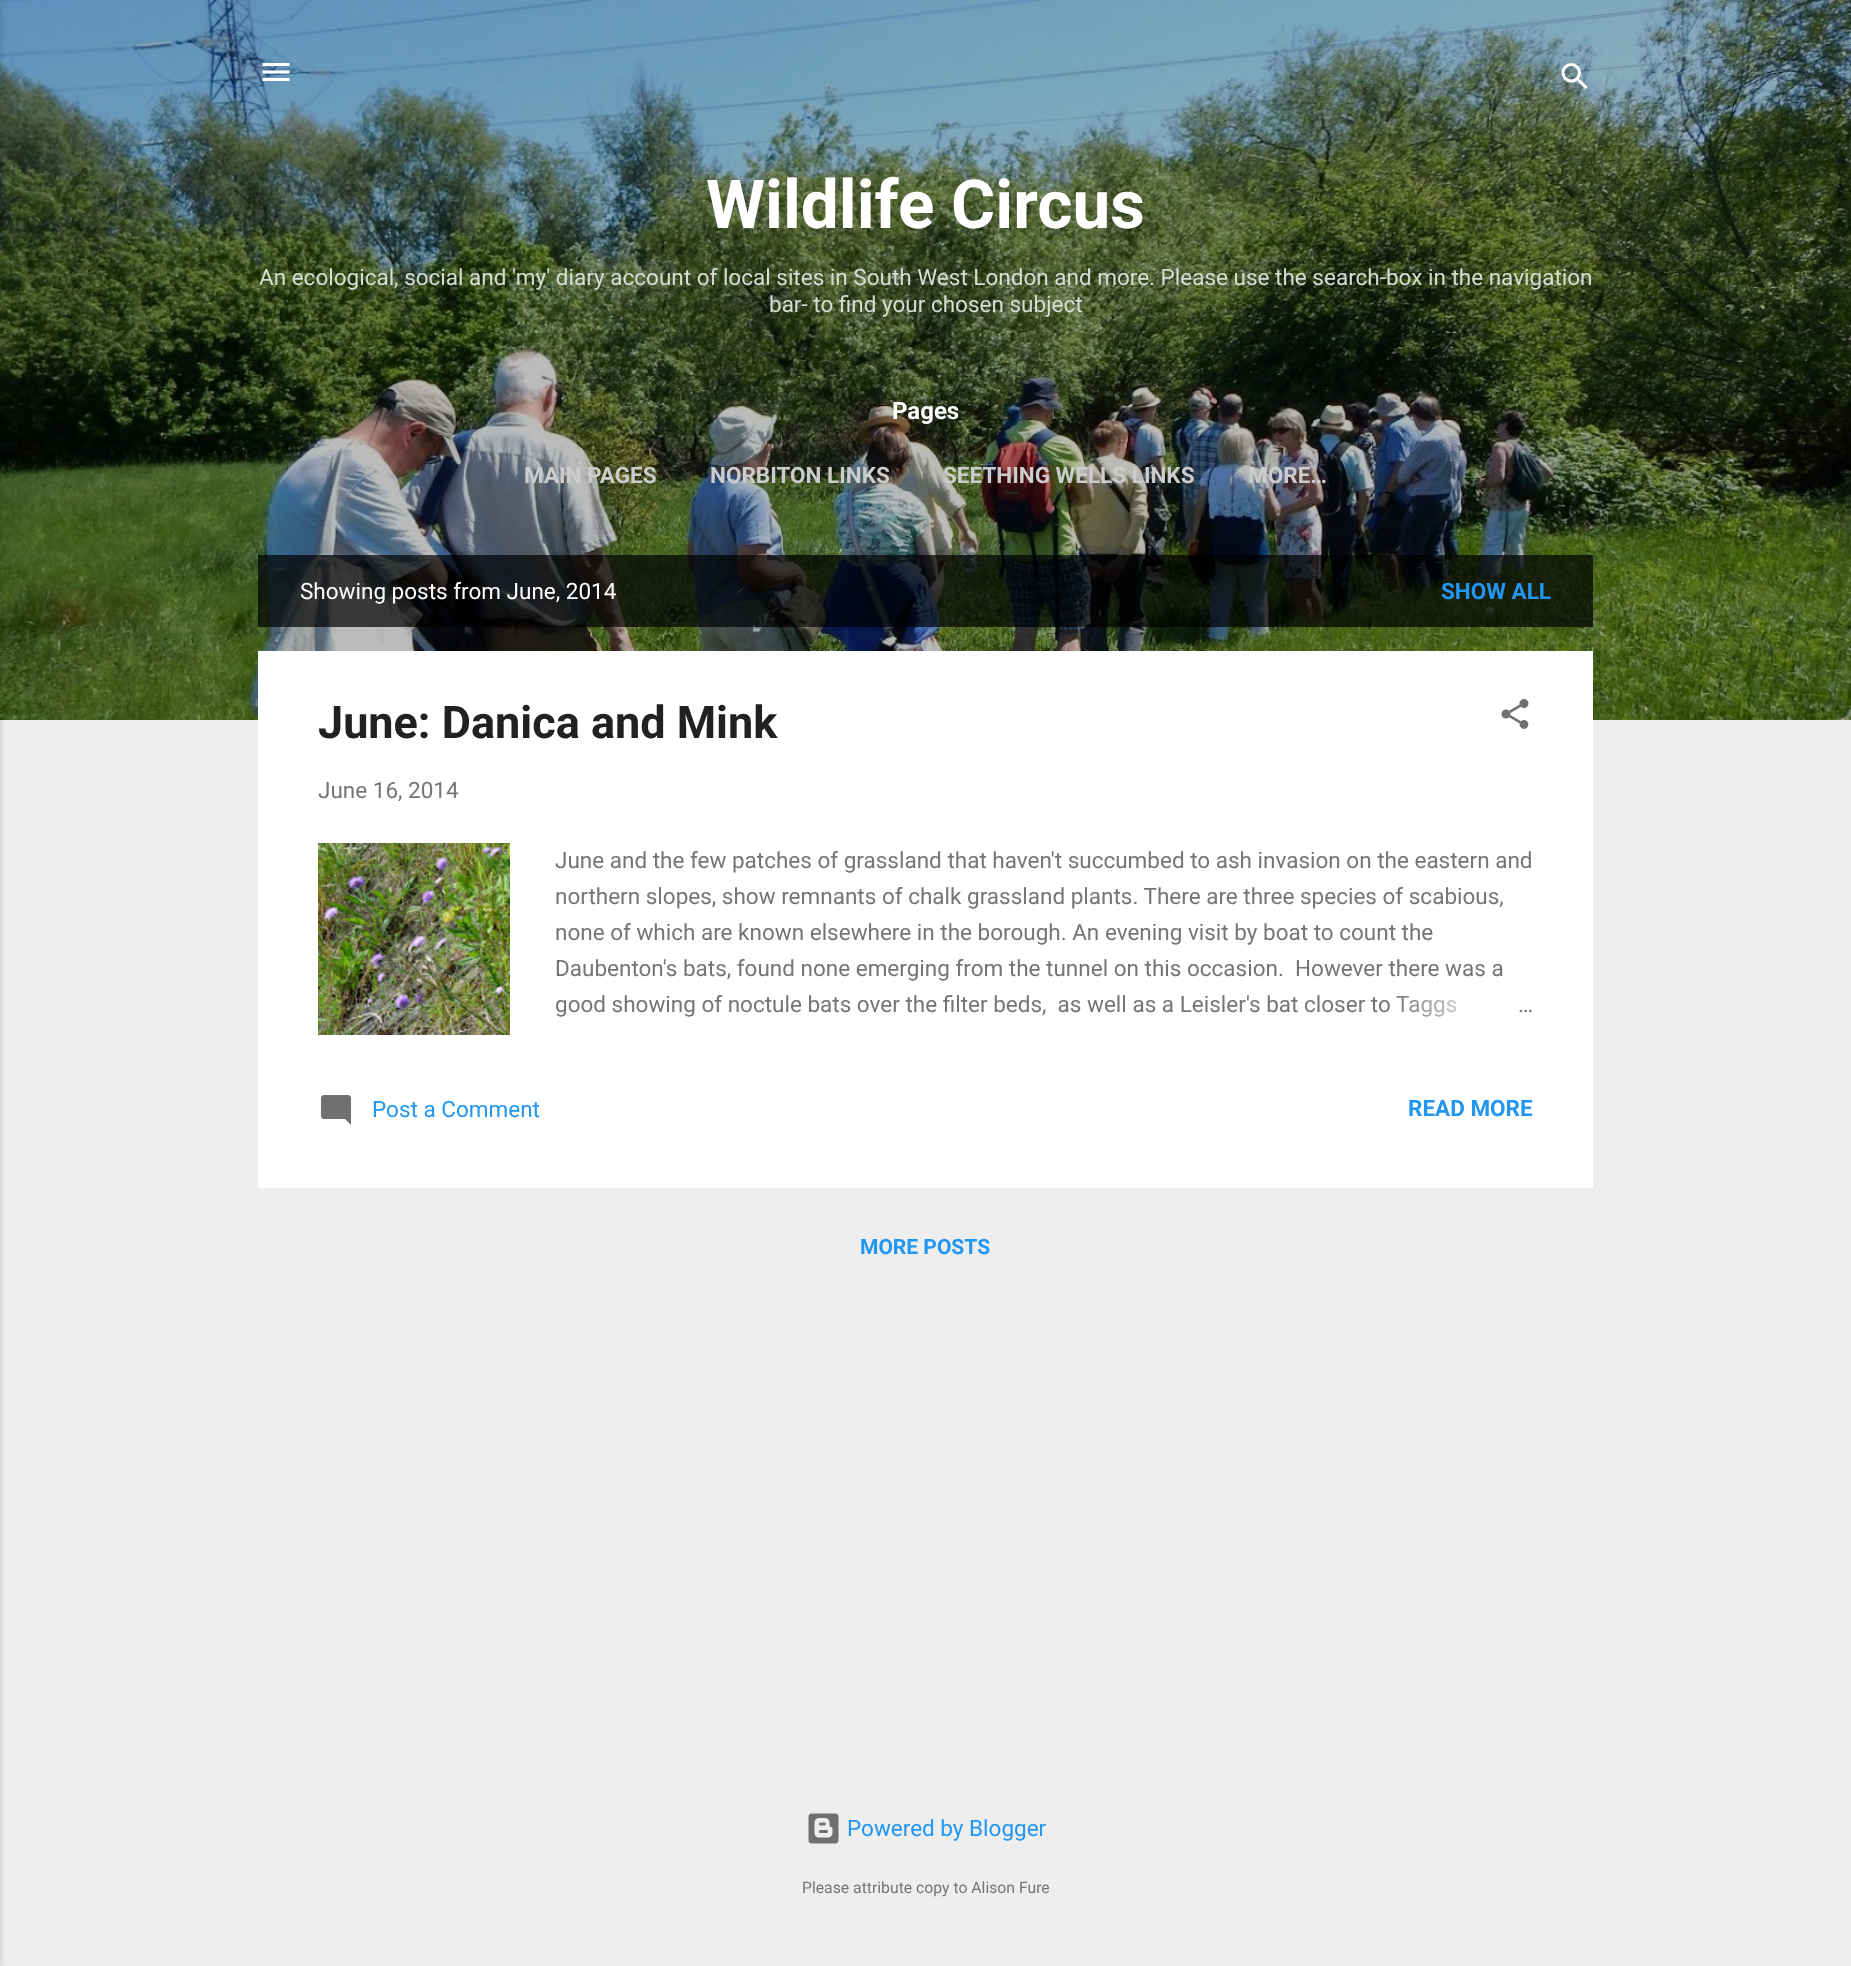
async function draw(canvas) {
  canvas.width = 1851
  canvas.height = 1966
  const ctx = canvas.getContext('2d')
  ctx.miterLimit = 4
  ctx.fontKerning = 'normal'
  async function loadImage(src) {
    const img = new Image()
    img.src = src
    await img.decode()
    return img
  }
  let gradient

  ctx.fillStyle = '#eee'
  ctx.fillRect(0, 0, 1851, 1966)
  ctx.drawImage(await loadImage('image0.png'), 0, 0, 1851, 720)
  ctx.fillStyle = '#0000001a'
  ctx.filter = 'blur(2px)'
  ctx.beginPath()
  ctx.rect(-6, 2, 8, 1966)
  ctx.fill()
  ctx.filter = 'none'
  ctx.drawImage(await loadImage('image1.png'), 262, 63, 28, 18)
  ctx.drawImage(await loadImage('image2.png'), 1561, 63, 27, 27)
  ctx.font = 'bold 67.5px Roboto'
  ctx.fillStyle = '#fff'
  ctx.fillText('Wildlife Circus', 706, 228)
  ctx.font = '22.5px Roboto'
  ctx.fillStyle = '#d8dcd4'
  ctx.fillText('An ecological, social and \'my\' diary account of local sites in South West London and more. Please use the search-box in the navigation', 259, 285)
  ctx.fillText('bar- to find your chosen subject', 769, 312)
  ctx.font = 'bold 24px Roboto'
  ctx.fillStyle = '#fff'
  ctx.fillText('Pages', 892, 419)
  ctx.font = 'bold 22.5px Roboto'
  ctx.fillStyle = '#ccc'
  ctx.fillText('MAIN PAGES', 524, 483)
  ctx.fillText('NORBITON LINKS', 710, 483)
  ctx.fillText('SEETHING WELLS LINKS', 943, 483)
  ctx.fillText('MORE…', 1248, 483)
  ctx.fillStyle = '#000000b3'
  ctx.fillRect(258, 555, 1335, 72)
  ctx.font = '22.5px Roboto'
  ctx.fillStyle = '#fff'
  ctx.fillText('Showing posts from June, 2014', 300, 599)
  ctx.font = 'bold 22.5px Roboto'
  ctx.fillStyle = '#2196f3'
  ctx.fillText('SHOW ALL', 1441, 599)
  ctx.fillStyle = '#fff'
  ctx.fillRect(258, 651, 1335, 537)
  ctx.font = 'bold 45px Roboto'
  ctx.fillStyle = '#212121'
  ctx.fillText('June: Danica and Mink', 318, 738)
  ctx.drawImage(await loadImage('image3.png'), 1501, 699, 28, 30)
  ctx.font = '22.5px Roboto'
  ctx.fillStyle = '#757575'
  ctx.fillText('June 16, 2014', 318, 798)
  ctx.drawImage(await loadImage('image4.png'), 318, 843, 192, 192)
  ctx.fillText('June and the few patches of grassland that haven\'t succumbed to ash invasion on the eastern and', 555, 868)
  ctx.fillText('northern slopes, show remnants of chalk grassland plants. There are three species of scabious,', 555, 904)
  ctx.fillText('none of which are known elsewhere in the borough. An evening visit by boat to count the', 555, 940)
  ctx.fillText('Daubenton\'s bats, found none emerging from the tunnel on this occasion.  However there was a', 555, 976)
  ctx.fillText('good showing of noctule bats over the filter beds,  as well as a Leisler\'s bat closer to Taggs', 555, 1012)
  gradient = ctx.createLinearGradient(1533, 1005, 1389, 1005)
  gradient.addColorStop(0, '#fff')
  gradient.addColorStop(0.2, '#fff')
  gradient.addColorStop(1, '#ffffff00')
  ctx.fillStyle = gradient
  ctx.fillRect(1396, 996, 61, 21)
  ctx.fillStyle = '#757575'
  ctx.fillText('…', 1518, 1012)
  ctx.drawImage(await loadImage('image5.png'), 321, 1095, 30, 30)
  ctx.fillStyle = '#2196f3'
  ctx.fillText('Post a Comment', 372, 1117)
  ctx.font = 'bold 22.5px Roboto'
  ctx.fillText('READ MORE', 1408, 1116)
  ctx.font = 'bold 21px Roboto'
  ctx.fillText('MORE POSTS', 860, 1254)
  ctx.drawImage(await loadImage('image6.png'), 808, 1813, 31, 31)
  ctx.font = '22.5px Roboto'
  ctx.fillText('Powered by Blogger', 847, 1836)
  ctx.font = '15.75px Roboto'
  ctx.fillStyle = '#757575'
  ctx.fillText('Please attribute copy to Alison Fure', 802, 1893)
}

draw(document.querySelector('canvas'))
